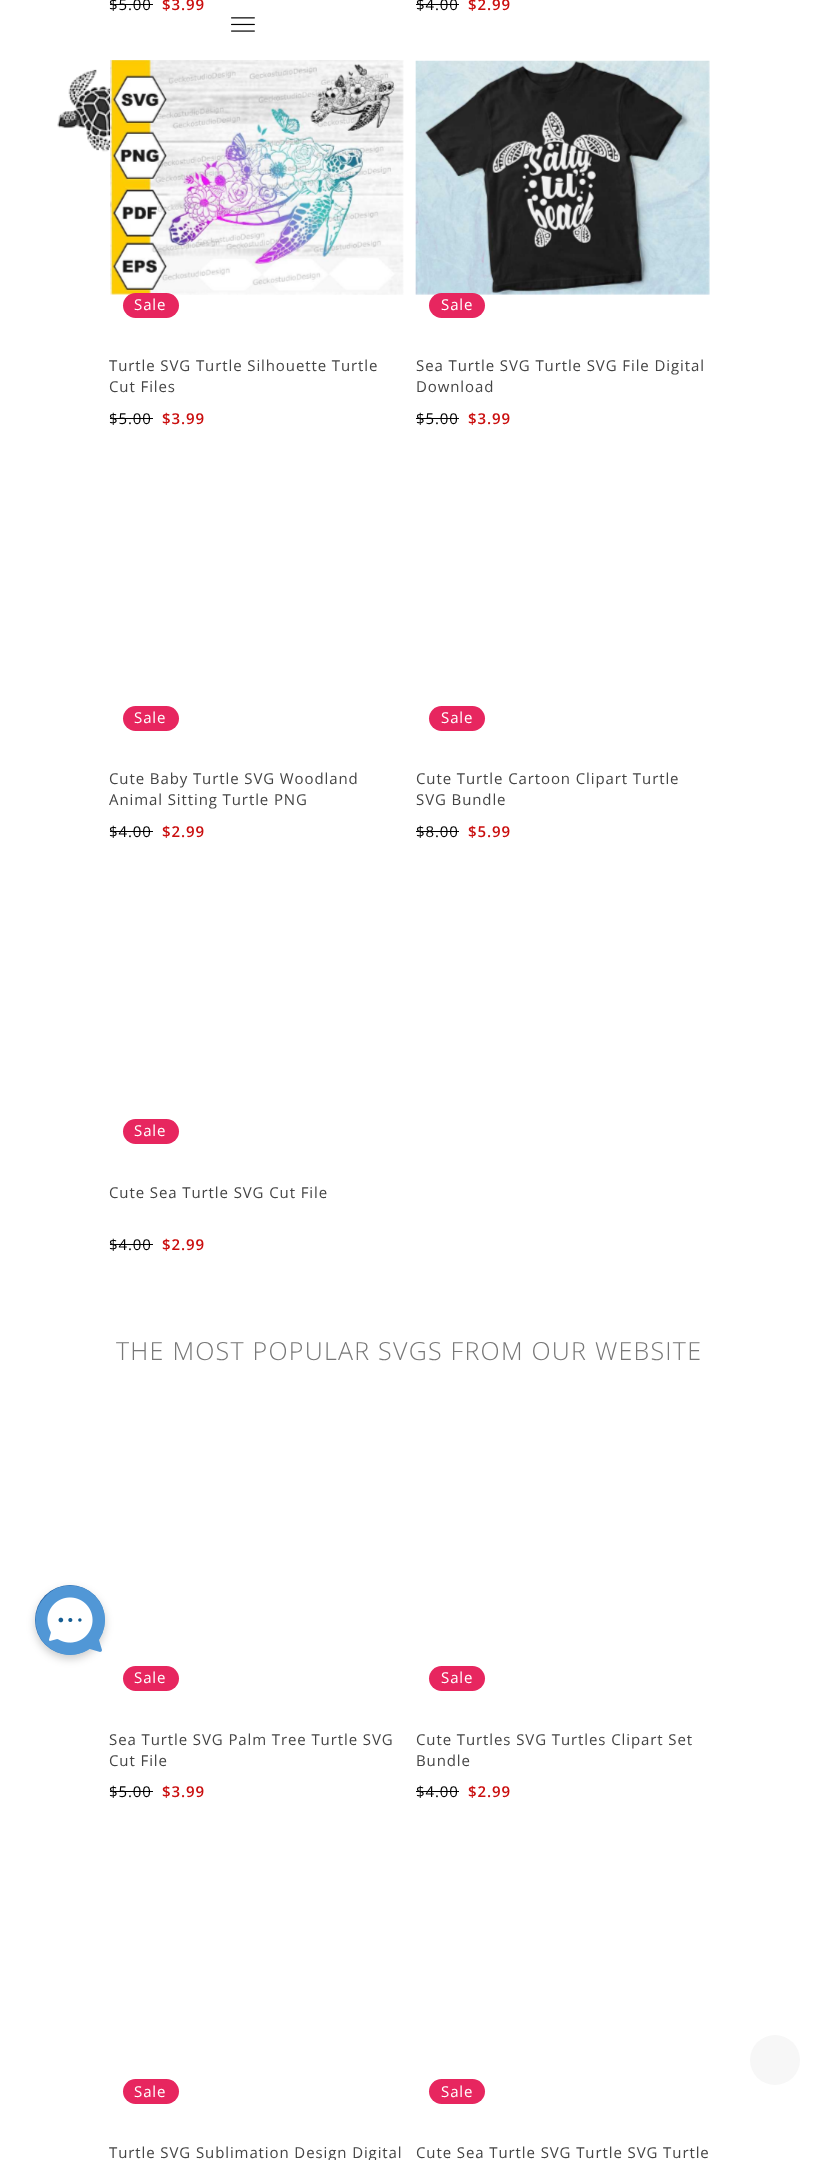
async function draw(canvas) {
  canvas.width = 818
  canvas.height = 2160
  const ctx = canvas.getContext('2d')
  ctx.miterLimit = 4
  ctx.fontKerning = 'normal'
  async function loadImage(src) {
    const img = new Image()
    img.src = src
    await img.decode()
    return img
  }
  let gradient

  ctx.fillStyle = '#fff'
  ctx.fillRect(0, 0, 818, 2160)
  ctx.letterSpacing = '0.9px'
  ctx.font = '15px Open Sans'
  ctx.fillStyle = '#000'
  ctx.fillText('$5.00', 109, 10)
  ctx.fillRect(110, 4, 43, 1)
  ctx.font = '600 15px Open Sans'
  ctx.fillStyle = '#ca0d0d'
  ctx.fillText('$3.99', 162, 10)
  ctx.font = '15px Open Sans'
  ctx.fillStyle = '#000'
  ctx.fillText('$4.00', 416, 10)
  ctx.fillRect(416, 4, 43, 1)
  ctx.font = '600 15px Open Sans'
  ctx.fillStyle = '#ca0d0d'
  ctx.fillText('$2.99', 468, 10)
  ctx.drawImage(await loadImage('image0.png'), 110, 60, 294, 235)
  ctx.fillStyle = '#e7265f'
  ctx.beginPath()
  ctx.roundRect(123, 293, 56, 25, 12.5)
  ctx.fill()
  ctx.font = '15px Open Sans'
  ctx.fillStyle = '#fff'
  ctx.fillText('Sale', 134, 310)
  ctx.fillStyle = '#444'
  ctx.fillText('Turtle SVG Turtle Silhouette Turtle', 109, 371)
  ctx.fillText('Cut Files', 109, 392)
  ctx.fillStyle = '#000'
  ctx.fillText('$5.00', 109, 424)
  ctx.fillRect(110, 418, 43, 1)
  ctx.font = '600 15px Open Sans'
  ctx.fillStyle = '#ca0d0d'
  ctx.fillText('$3.99', 162, 424)
  ctx.drawImage(await loadImage('image1.png'), 415, 60, 295, 235)
  ctx.fillStyle = '#e7265f'
  ctx.beginPath()
  ctx.roundRect(429, 293, 56, 25, 12.5)
  ctx.fill()
  ctx.font = '15px Open Sans'
  ctx.fillStyle = '#fff'
  ctx.fillText('Sale', 441, 310)
  ctx.fillStyle = '#444'
  ctx.fillText('Sea Turtle SVG Turtle SVG File Digital', 416, 371)
  ctx.fillText('Download', 416, 392)
  ctx.fillStyle = '#000'
  ctx.fillText('$5.00', 416, 424)
  ctx.fillRect(416, 418, 43, 1)
  ctx.font = '600 15px Open Sans'
  ctx.fillStyle = '#ca0d0d'
  ctx.fillText('$3.99', 468, 424)
  ctx.fillStyle = '#e7265f'
  ctx.beginPath()
  ctx.roundRect(123, 706, 56, 25, 12.5)
  ctx.fill()
  ctx.font = '15px Open Sans'
  ctx.fillStyle = '#fff'
  ctx.fillText('Sale', 134, 723)
  ctx.fillStyle = '#444'
  ctx.fillText('Cute Baby Turtle SVG Woodland', 109, 784)
  ctx.fillText('Animal Sitting Turtle PNG', 109, 805)
  ctx.fillStyle = '#000'
  ctx.fillText('$4.00', 109, 837)
  ctx.fillRect(110, 831, 43, 1)
  ctx.font = '600 15px Open Sans'
  ctx.fillStyle = '#ca0d0d'
  ctx.fillText('$2.99', 162, 837)
  ctx.fillStyle = '#e7265f'
  ctx.beginPath()
  ctx.roundRect(429, 706, 56, 25, 12.5)
  ctx.fill()
  ctx.font = '15px Open Sans'
  ctx.fillStyle = '#fff'
  ctx.fillText('Sale', 441, 723)
  ctx.fillStyle = '#444'
  ctx.fillText('Cute Turtle Cartoon Clipart Turtle', 416, 784)
  ctx.fillText('SVG Bundle', 416, 805)
  ctx.fillStyle = '#000'
  ctx.fillText('$8.00', 416, 837)
  ctx.fillRect(416, 831, 43, 1)
  ctx.font = '600 15px Open Sans'
  ctx.fillStyle = '#ca0d0d'
  ctx.fillText('$5.99', 468, 837)
  ctx.fillStyle = '#e7265f'
  ctx.beginPath()
  ctx.roundRect(123, 1119, 56, 25, 12.5)
  ctx.fill()
  ctx.font = '15px Open Sans'
  ctx.fillStyle = '#fff'
  ctx.fillText('Sale', 134, 1136)
  ctx.fillStyle = '#444'
  ctx.fillText('Cute Sea Turtle SVG Cut File', 109, 1198)
  ctx.fillStyle = '#000'
  ctx.fillText('$4.00', 109, 1250)
  ctx.fillRect(110, 1244, 43, 1)
  ctx.font = '600 15px Open Sans'
  ctx.fillStyle = '#ca0d0d'
  ctx.fillText('$2.99', 162, 1250)
  ctx.letterSpacing = '1.25px'
  ctx.font = '300 25px Open Sans'
  ctx.fillStyle = '#777'
  ctx.fillText('THE MOST POPULAR SVGS FROM OUR WEBSITE', 116, 1360)
  ctx.fillStyle = '#e7265f'
  ctx.beginPath()
  ctx.roundRect(123, 1666, 56, 25, 12.5)
  ctx.fill()
  ctx.letterSpacing = '0.9px'
  ctx.font = '15px Open Sans'
  ctx.fillStyle = '#fff'
  ctx.fillText('Sale', 134, 1683)
  ctx.fillStyle = '#444'
  ctx.fillText('Sea Turtle SVG Palm Tree Turtle SVG', 109, 1745)
  ctx.fillText('Cut File', 109, 1766)
  ctx.fillStyle = '#000'
  ctx.fillText('$5.00', 109, 1797)
  ctx.fillRect(110, 1791, 43, 1)
  ctx.font = '600 15px Open Sans'
  ctx.fillStyle = '#ca0d0d'
  ctx.fillText('$3.99', 162, 1797)
  ctx.fillStyle = '#e7265f'
  ctx.beginPath()
  ctx.roundRect(429, 1666, 56, 25, 12.5)
  ctx.fill()
  ctx.font = '15px Open Sans'
  ctx.fillStyle = '#fff'
  ctx.fillText('Sale', 441, 1683)
  ctx.fillStyle = '#444'
  ctx.fillText('Cute Turtles SVG Turtles Clipart Set', 416, 1745)
  ctx.fillText('Bundle', 416, 1766)
  ctx.fillStyle = '#000'
  ctx.fillText('$4.00', 416, 1797)
  ctx.fillRect(416, 1791, 43, 1)
  ctx.font = '600 15px Open Sans'
  ctx.fillStyle = '#ca0d0d'
  ctx.fillText('$2.99', 468, 1797)
  ctx.fillStyle = '#e7265f'
  ctx.beginPath()
  ctx.roundRect(123, 2079, 56, 25, 12.5)
  ctx.fill()
  ctx.font = '15px Open Sans'
  ctx.fillStyle = '#fff'
  ctx.fillText('Sale', 134, 2097)
  ctx.fillStyle = '#444'
  ctx.fillText('Turtle SVG Sublimation Design Digital', 109, 2158)
  ctx.fillStyle = '#e7265f'
  ctx.beginPath()
  ctx.roundRect(429, 2079, 56, 25, 12.5)
  ctx.fill()
  ctx.fillStyle = '#fff'
  ctx.fillText('Sale', 441, 2097)
  ctx.fillStyle = '#444'
  ctx.fillText('Cute Sea Turtle SVG Turtle SVG Turtle', 416, 2158)
  ctx.drawImage(await loadImage('image2.png'), 231, 17, 24, 15)
  ctx.drawImage(await loadImage('image3.png'), 57, 69, 53, 83)
  ctx.fillStyle = '#f7f7f7'
  ctx.beginPath()
  ctx.arc(775, 2060, 25, 0, 2 * Math.PI)
  ctx.fill()
  ctx.fillStyle = '#00000033'
  ctx.filter = 'blur(4px)'
  ctx.beginPath()
  ctx.roundRect(35, 1589, 70, 70, 35)
  ctx.fill()
  ctx.filter = 'none'
  gradient = ctx.createLinearGradient(35, 1585, 105, 1655)
  gradient.addColorStop(0, '#1e5799')
  gradient.addColorStop(1, '#50a4e5')
  ctx.fillStyle = gradient
  ctx.beginPath()
  ctx.arc(70, 1620, 35, 0, 2 * Math.PI)
  ctx.fill()
  ctx.fillStyle = '#5197d6'
  ctx.beginPath()
  ctx.moveTo(95, 1596)
  ctx.bezierCurveTo(81, 1582, 58, 1582, 45, 1597)
  ctx.bezierCurveTo(32, 1610, 33, 1631, 45, 1644)
  ctx.bezierCurveTo(57, 1656, 74, 1658, 88, 1650)
  ctx.bezierCurveTo(88, 1649, 89, 1649, 90, 1649)
  ctx.lineTo(100, 1652)
  ctx.bezierCurveTo(101, 1652, 102, 1651, 102, 1650)
  ctx.lineTo(99, 1640)
  ctx.bezierCurveTo(99, 1640, 99, 1639, 100, 1638)
  ctx.bezierCurveTo(108, 1624, 106, 1607, 95, 1596)
  ctx.closePath()
  ctx.fill()
  ctx.drawImage(await loadImage('image4.png'), 47, 1597, 46, 46)
  ctx.drawImage(await loadImage('image5.png'), 58, 1617, 24, 6)
}

draw(document.querySelector('canvas'))
